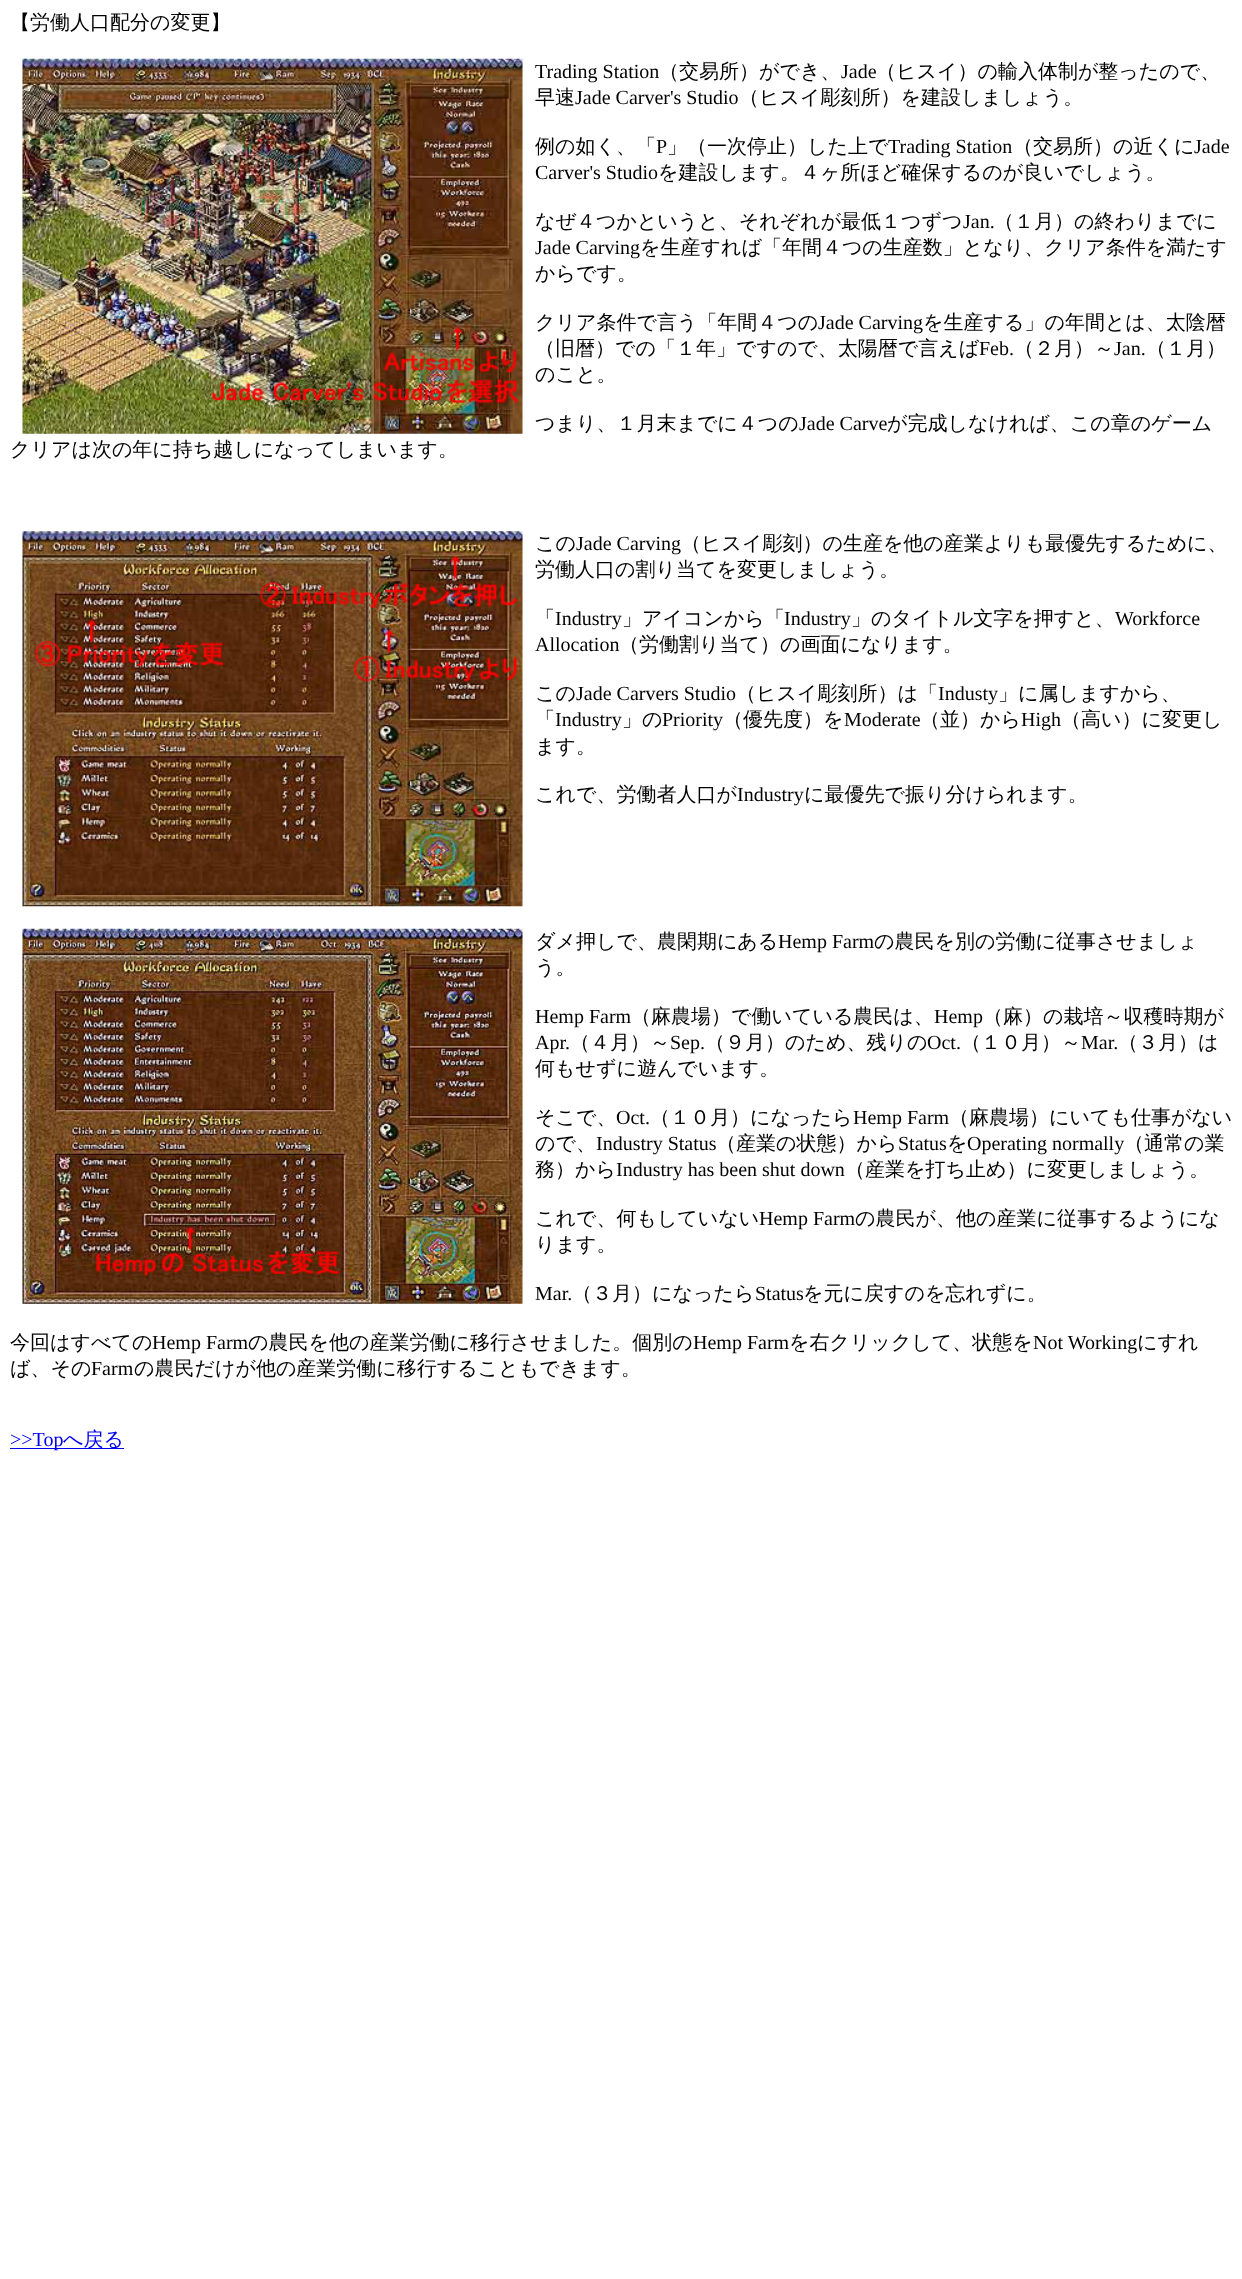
async function draw(canvas) {
  canvas.width = 1242
  canvas.height = 2279
  const ctx = canvas.getContext('2d')
  ctx.miterLimit = 4
  ctx.fontKerning = 'normal'
  async function loadImage(src) {
    const img = new Image()
    img.src = src
    await img.decode()
    return img
  }

  ctx.fillStyle = '#fff'
  ctx.fillRect(0, 0, 1242, 2279)
  ctx.font = '500 20px WenQuanYi Zen Hei'
  ctx.fillStyle = '#000'
  ctx.fillText('【労働人口配分の変更】', 10, 29)
  ctx.drawImage(await loadImage('image0.png'), 22, 58, 501, 376)
  ctx.font = '20px Liberation Serif'
  ctx.fillText('Trading Station', 535, 78)
  ctx.font = '500 20px WenQuanYi Zen Hei'
  ctx.fillText('（交易所）ができ、', 659, 78)
  ctx.font = '20px Liberation Serif'
  ctx.fillText('Jade', 841, 78)
  ctx.font = '500 20px WenQuanYi Zen Hei'
  ctx.fillText('（ヒスイ）の輸入体制が整ったので、', 876, 78)
  ctx.fillText('早速', 535, 104)
  ctx.font = '20px Liberation Serif'
  ctx.fillText('Jade Carver\'s Studio', 575, 104)
  ctx.font = '500 20px WenQuanYi Zen Hei'
  ctx.fillText('（ヒスイ彫刻所）を建設しましょう。', 739, 104)
  ctx.fillText('例の如く、「', 535, 153)
  ctx.font = '20px Liberation Serif'
  ctx.fillText('P', 656, 153)
  ctx.font = '500 20px WenQuanYi Zen Hei'
  ctx.fillText('」（一次停止）した上で', 667, 153)
  ctx.font = '20px Liberation Serif'
  ctx.fillText('Trading Station', 888, 153)
  ctx.font = '500 20px WenQuanYi Zen Hei'
  ctx.fillText('（交易所）の近くに', 1013, 153)
  ctx.font = '20px Liberation Serif'
  ctx.fillText('Jade', 1194, 153)
  ctx.fillText('Carver\'s Studio', 535, 179)
  ctx.font = '500 20px WenQuanYi Zen Hei'
  ctx.fillText('を建設します。４ヶ所ほど確保するのが良いでしょう。', 658, 179)
  ctx.fillText('なぜ４つかというと、それぞれが最低１つずつ', 535, 228)
  ctx.font = '20px Liberation Serif'
  ctx.fillText('Jan.', 963, 228)
  ctx.font = '500 20px WenQuanYi Zen Hei'
  ctx.fillText('（１月）の終わりまでに', 994, 228)
  ctx.font = '20px Liberation Serif'
  ctx.fillText('Jade Carving', 535, 254)
  ctx.font = '500 20px WenQuanYi Zen Hei'
  ctx.fillText('を生産すれば「年間４つの生産数」となり、クリア条件を満たす', 640, 254)
  ctx.fillText('からです。', 535, 280)
  ctx.fillText('クリア条件で言う「年間４つの', 535, 329)
  ctx.font = '20px Liberation Serif'
  ctx.fillText('Jade Carving', 818, 329)
  ctx.font = '500 20px WenQuanYi Zen Hei'
  ctx.fillText('を生産する」の年間とは、太陰暦', 923, 329)
  ctx.fillText('（旧暦）での「１年」ですので、太陽暦で言えば', 535, 355)
  ctx.font = '20px Liberation Serif'
  ctx.fillText('Feb.', 979, 355)
  ctx.font = '500 20px WenQuanYi Zen Hei'
  ctx.fillText('（２月）～', 1014, 355)
  ctx.font = '20px Liberation Serif'
  ctx.fillText('Jan.', 1114, 355)
  ctx.font = '500 20px WenQuanYi Zen Hei'
  ctx.fillText('（１月）', 1146, 355)
  ctx.fillText('のこと。', 535, 381)
  ctx.fillText('つまり、１月末までに４つの', 535, 430)
  ctx.font = '20px Liberation Serif'
  ctx.fillText('Jade Carve', 799, 430)
  ctx.font = '500 20px WenQuanYi Zen Hei'
  ctx.fillText('が完成しなければ、この章のゲーム', 887, 430)
  ctx.fillText('クリアは次の年に持ち越しになってしまいます。', 10, 456)
  ctx.drawImage(await loadImage('image1.png'), 22, 531, 501, 376)
  ctx.fillText('この', 535, 550)
  ctx.font = '20px Liberation Serif'
  ctx.fillText('Jade Carving', 576, 550)
  ctx.font = '500 20px WenQuanYi Zen Hei'
  ctx.fillText('（ヒスイ彫刻）の生産を他の産業よりも最優先するために、', 681, 550)
  ctx.fillText('労働人口の割り当てを変更しましょう。', 535, 576)
  ctx.fillText('「', 535, 625)
  ctx.font = '20px Liberation Serif'
  ctx.fillText('Industry', 555, 625)
  ctx.font = '500 20px WenQuanYi Zen Hei'
  ctx.fillText('」アイコンから「', 622, 625)
  ctx.font = '20px Liberation Serif'
  ctx.fillText('Industry', 784, 625)
  ctx.font = '500 20px WenQuanYi Zen Hei'
  ctx.fillText('」のタイトル文字を押すと、', 851, 625)
  ctx.font = '20px Liberation Serif'
  ctx.fillText('Workforce', 1115, 625)
  ctx.fillText('Allocation', 535, 651)
  ctx.font = '500 20px WenQuanYi Zen Hei'
  ctx.fillText('（労働割り当て）の画面になります。', 619, 651)
  ctx.fillText('この', 535, 700)
  ctx.font = '20px Liberation Serif'
  ctx.fillText('Jade Carvers Studio', 576, 700)
  ctx.font = '500 20px WenQuanYi Zen Hei'
  ctx.fillText('（ヒスイ彫刻所）は「', 736, 700)
  ctx.font = '20px Liberation Serif'
  ctx.fillText('Industy', 938, 700)
  ctx.font = '500 20px WenQuanYi Zen Hei'
  ctx.fillText('」に属しますから、', 998, 700)
  ctx.fillText('「', 535, 726)
  ctx.font = '20px Liberation Serif'
  ctx.fillText('Industry', 555, 726)
  ctx.font = '500 20px WenQuanYi Zen Hei'
  ctx.fillText('」の', 622, 726)
  ctx.font = '20px Liberation Serif'
  ctx.fillText('Priority', 662, 726)
  ctx.font = '500 20px WenQuanYi Zen Hei'
  ctx.fillText('（優先度）を', 723, 726)
  ctx.font = '20px Liberation Serif'
  ctx.fillText('Moderate', 844, 726)
  ctx.font = '500 20px WenQuanYi Zen Hei'
  ctx.fillText('（並）から', 920, 726)
  ctx.font = '20px Liberation Serif'
  ctx.fillText('High', 1021, 726)
  ctx.font = '500 20px WenQuanYi Zen Hei'
  ctx.fillText('（高い）に変更し', 1061, 726)
  ctx.fillText('ます。', 535, 753)
  ctx.fillText('これで、労働者人口が', 535, 801)
  ctx.font = '20px Liberation Serif'
  ctx.fillText('Industry', 737, 801)
  ctx.font = '500 20px WenQuanYi Zen Hei'
  ctx.fillText('に最優先で振り分けられます。', 804, 801)
  ctx.drawImage(await loadImage('image2.png'), 22, 928, 501, 376)
  ctx.fillText('ダメ押しで、農閑期にある', 535, 948)
  ctx.font = '20px Liberation Serif'
  ctx.fillText('Hemp Farm', 778, 948)
  ctx.font = '500 20px WenQuanYi Zen Hei'
  ctx.fillText('の農民を別の労働に従事させましょ', 874, 948)
  ctx.fillText('う。', 535, 974)
  ctx.font = '20px Liberation Serif'
  ctx.fillText('Hemp Farm', 535, 1023)
  ctx.font = '500 20px WenQuanYi Zen Hei'
  ctx.fillText('（麻農場）で働いている農民は、', 631, 1023)
  ctx.font = '20px Liberation Serif'
  ctx.fillText('Hemp', 934, 1023)
  ctx.font = '500 20px WenQuanYi Zen Hei'
  ctx.fillText('（麻）の栽培～収穫時期が', 983, 1023)
  ctx.font = '20px Liberation Serif'
  ctx.fillText('Apr.', 535, 1049)
  ctx.font = '500 20px WenQuanYi Zen Hei'
  ctx.fillText('（４月）～', 570, 1049)
  ctx.font = '20px Liberation Serif'
  ctx.fillText('Sep.', 670, 1049)
  ctx.font = '500 20px WenQuanYi Zen Hei'
  ctx.fillText('（９月）のため、残りの', 705, 1049)
  ctx.font = '20px Liberation Serif'
  ctx.fillText('Oct.', 927, 1049)
  ctx.font = '500 20px WenQuanYi Zen Hei'
  ctx.fillText('（１０月）～', 961, 1049)
  ctx.font = '20px Liberation Serif'
  ctx.fillText('Mar.', 1081, 1049)
  ctx.font = '500 20px WenQuanYi Zen Hei'
  ctx.fillText('（３月）は', 1118, 1049)
  ctx.fillText('何もせずに遊んでいます。', 535, 1075)
  ctx.fillText('そこで、', 535, 1124)
  ctx.font = '20px Liberation Serif'
  ctx.fillText('Oct.', 616, 1124)
  ctx.font = '500 20px WenQuanYi Zen Hei'
  ctx.fillText('（１０月）になったら', 650, 1124)
  ctx.font = '20px Liberation Serif'
  ctx.fillText('Hemp Farm', 853, 1124)
  ctx.font = '500 20px WenQuanYi Zen Hei'
  ctx.fillText('（麻農場）にいても仕事がない', 949, 1124)
  ctx.fillText('ので、', 535, 1150)
  ctx.font = '20px Liberation Serif'
  ctx.fillText('Industry Status', 596, 1150)
  ctx.font = '500 20px WenQuanYi Zen Hei'
  ctx.fillText('（産業の状態）から', 716, 1150)
  ctx.font = '20px Liberation Serif'
  ctx.fillText('Status', 898, 1150)
  ctx.font = '500 20px WenQuanYi Zen Hei'
  ctx.fillText('を', 947, 1150)
  ctx.font = '20px Liberation Serif'
  ctx.fillText('Operating normally', 967, 1150)
  ctx.font = '500 20px WenQuanYi Zen Hei'
  ctx.fillText('（通常の業', 1124, 1150)
  ctx.fillText('務）から', 535, 1176)
  ctx.font = '20px Liberation Serif'
  ctx.fillText('Industry has been shut down', 616, 1176)
  ctx.font = '500 20px WenQuanYi Zen Hei'
  ctx.fillText('（産業を打ち止め）に変更しましょう。', 845, 1176)
  ctx.fillText('これで、何もしていない', 535, 1225)
  ctx.font = '20px Liberation Serif'
  ctx.fillText('Hemp Farm', 759, 1225)
  ctx.font = '500 20px WenQuanYi Zen Hei'
  ctx.fillText('の農民が、他の産業に従事するようにな', 855, 1225)
  ctx.fillText('ります。', 535, 1251)
  ctx.font = '20px Liberation Serif'
  ctx.fillText('Mar.', 535, 1300)
  ctx.font = '500 20px WenQuanYi Zen Hei'
  ctx.fillText('（３月）になったら', 572, 1300)
  ctx.font = '20px Liberation Serif'
  ctx.fillText('Status', 755, 1300)
  ctx.font = '500 20px WenQuanYi Zen Hei'
  ctx.fillText('を元に戻すのを忘れずに。', 803, 1300)
  ctx.fillText('今回はすべての', 10, 1349)
  ctx.font = '20px Liberation Serif'
  ctx.fillText('Hemp Farm', 152, 1349)
  ctx.font = '500 20px WenQuanYi Zen Hei'
  ctx.fillText('の農民を他の産業労働に移行させました。個別の', 248, 1349)
  ctx.font = '20px Liberation Serif'
  ctx.fillText('Hemp Farm', 693, 1349)
  ctx.font = '500 20px WenQuanYi Zen Hei'
  ctx.fillText('を右クリックして、状態を', 789, 1349)
  ctx.font = '20px Liberation Serif'
  ctx.fillText('Not Working', 1033, 1349)
  ctx.font = '500 20px WenQuanYi Zen Hei'
  ctx.fillText('にすれ', 1137, 1349)
  ctx.fillText('ば、その', 10, 1375)
  ctx.font = '20px Liberation Serif'
  ctx.fillText('Farm', 91, 1375)
  ctx.font = '500 20px WenQuanYi Zen Hei'
  ctx.fillText('の農民だけが他の産業労働に移行することもできます。', 134, 1375)
  ctx.fillStyle = '#00e'
  ctx.fillRect(10, 1448, 114, 1)
  ctx.font = '20px Liberation Serif'
  ctx.fillText('>>Top', 10, 1446)
  ctx.font = '500 20px WenQuanYi Zen Hei'
  ctx.fillText('へ戻る', 63, 1446)
}

draw(document.querySelector('canvas'))
